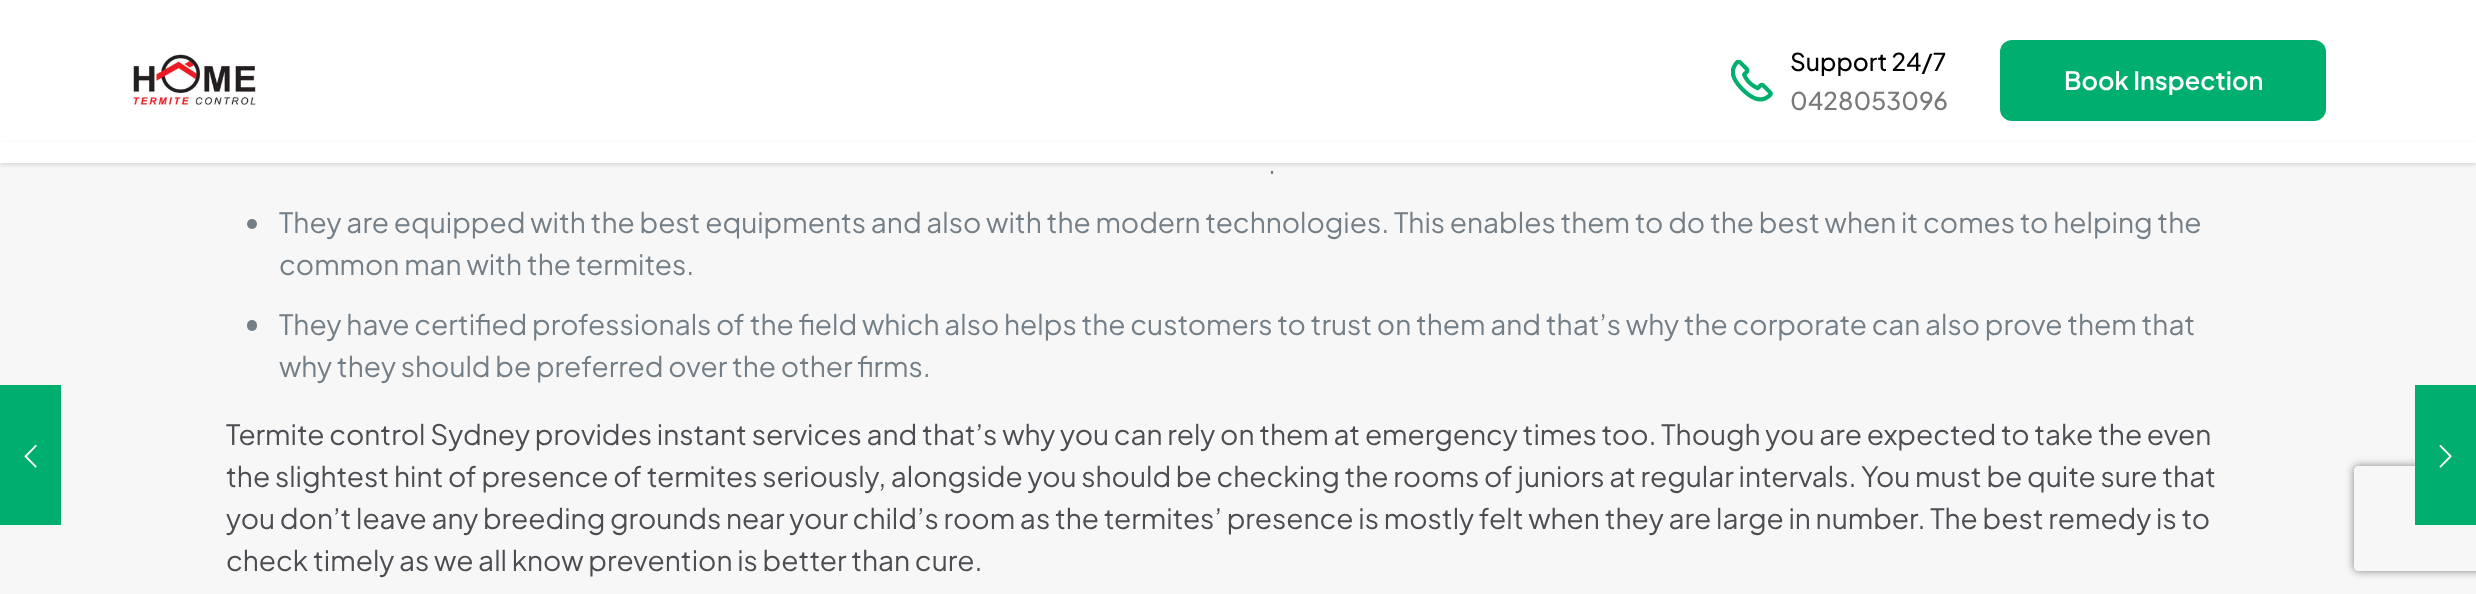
async function draw(canvas) {
  canvas.width = 2476
  canvas.height = 594
  const ctx = canvas.getContext('2d')
  ctx.miterLimit = 4
  ctx.fontKerning = 'normal'
  async function loadImage(src) {
    const img = new Image()
    img.src = src
    await img.decode()
    return img
  }

  ctx.fillStyle = '#f7f7f7'
  ctx.fillRect(0, 0, 2476, 594)
  ctx.fillStyle = '#00af6d'
  ctx.fillRect(0, 385, 61, 140)
  ctx.drawImage(await loadImage('image0.png'), 24, 445, 13, 23)
  ctx.fillStyle = '#fff'
  ctx.fillRect(0, 0, 2476, 142)
  ctx.drawImage(await loadImage('image1.png'), 133, 54, 123, 51)
  ctx.drawImage(await loadImage('image2.png'), 1731, 60, 42, 42)
  ctx.font = '500 24.5px Plus Jakarta Sans'
  ctx.fillStyle = '#000'
  ctx.fillText('Support 24/7', 1790, 71)
  ctx.fillStyle = '#797979'
  ctx.fillText('0428053096', 1790, 110)
  ctx.fillStyle = '#00af6d'
  ctx.beginPath()
  ctx.roundRect(2000, 40, 326, 81, 12)
  ctx.fill()
  ctx.font = '600 25.25px Plus Jakarta Sans'
  ctx.fillStyle = '#fff'
  ctx.fillText('Book Inspection', 2064, 90)
  ctx.fillStyle = '#0000001f'
  ctx.filter = 'blur(2px)'
  ctx.beginPath()
  ctx.rect(0, 144, 2476, 21)
  ctx.fill()
  ctx.filter = 'none'
  ctx.fillStyle = '#fff'
  ctx.fillRect(0, 142, 2476, 21)
  ctx.font = '28px Plus Jakarta Sans'
  ctx.fillStyle = '#737e86'
  ctx.fillText('.', 1268, 174)
  ctx.beginPath()
  ctx.arc(252, 224, 5, 0, 2 * Math.PI)
  ctx.fill()
  ctx.fillText('They are equipped with the best equipments and also with the modern technologies. This enables them to do the best when it comes to helping the', 279, 233)
  ctx.fillText('common man with the termites.', 279, 275)
  ctx.beginPath()
  ctx.roundRect(247, 320, 10, 11, 5)
  ctx.fill()
  ctx.fillText('They have certified professionals of the field which also helps the customers to trust on them and that’s why the corporate can also prove them that', 279, 335)
  ctx.fillText('why they should be preferred over the other firms.', 279, 377)
  ctx.fillStyle = '#4c4d52'
  ctx.fillText('Termite control Sydney provides instant services and that’s why you can rely on them at emergency times too. Though you are expected to take the even', 226, 445)
  ctx.fillText('the slightest hint of presence of termites seriously, alongside you should be checking the rooms of juniors at regular intervals. You must be quite sure that', 226, 487)
  ctx.fillText('you don’t leave any breeding grounds near your child’s room as the termites’ presence is mostly felt when they are large in number. The best remedy is to', 226, 529)
  ctx.fillText('check timely as we all know prevention is better than cure.', 226, 571)
  ctx.save()
  ctx.beginPath()
  ctx.moveTo(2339, 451)
  ctx.lineTo(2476, 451)
  ctx.lineTo(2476, 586)
  ctx.lineTo(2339, 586)
  ctx.closePath()
  ctx.moveTo(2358, 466)
  ctx.lineTo(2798, 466)
  ctx.bezierCurveTo(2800, 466, 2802, 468, 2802, 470)
  ctx.lineTo(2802, 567)
  ctx.bezierCurveTo(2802, 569, 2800, 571, 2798, 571)
  ctx.lineTo(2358, 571)
  ctx.bezierCurveTo(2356, 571, 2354, 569, 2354, 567)
  ctx.lineTo(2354, 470)
  ctx.bezierCurveTo(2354, 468, 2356, 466, 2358, 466)
  ctx.closePath()
  ctx.clip('evenodd')
  ctx.fillStyle = '#808080'
  ctx.filter = 'blur(4.5px)'
  ctx.beginPath()
  ctx.roundRect(2354, 466, 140, 105, 4)
  ctx.fill()
  ctx.filter = 'none'
  ctx.restore()
  ctx.fillStyle = '#00af6d'
  ctx.fillRect(2415, 385, 61, 140)
  ctx.drawImage(await loadImage('image3.png'), 2439, 445, 13, 23)
}

draw(document.querySelector('canvas'))
